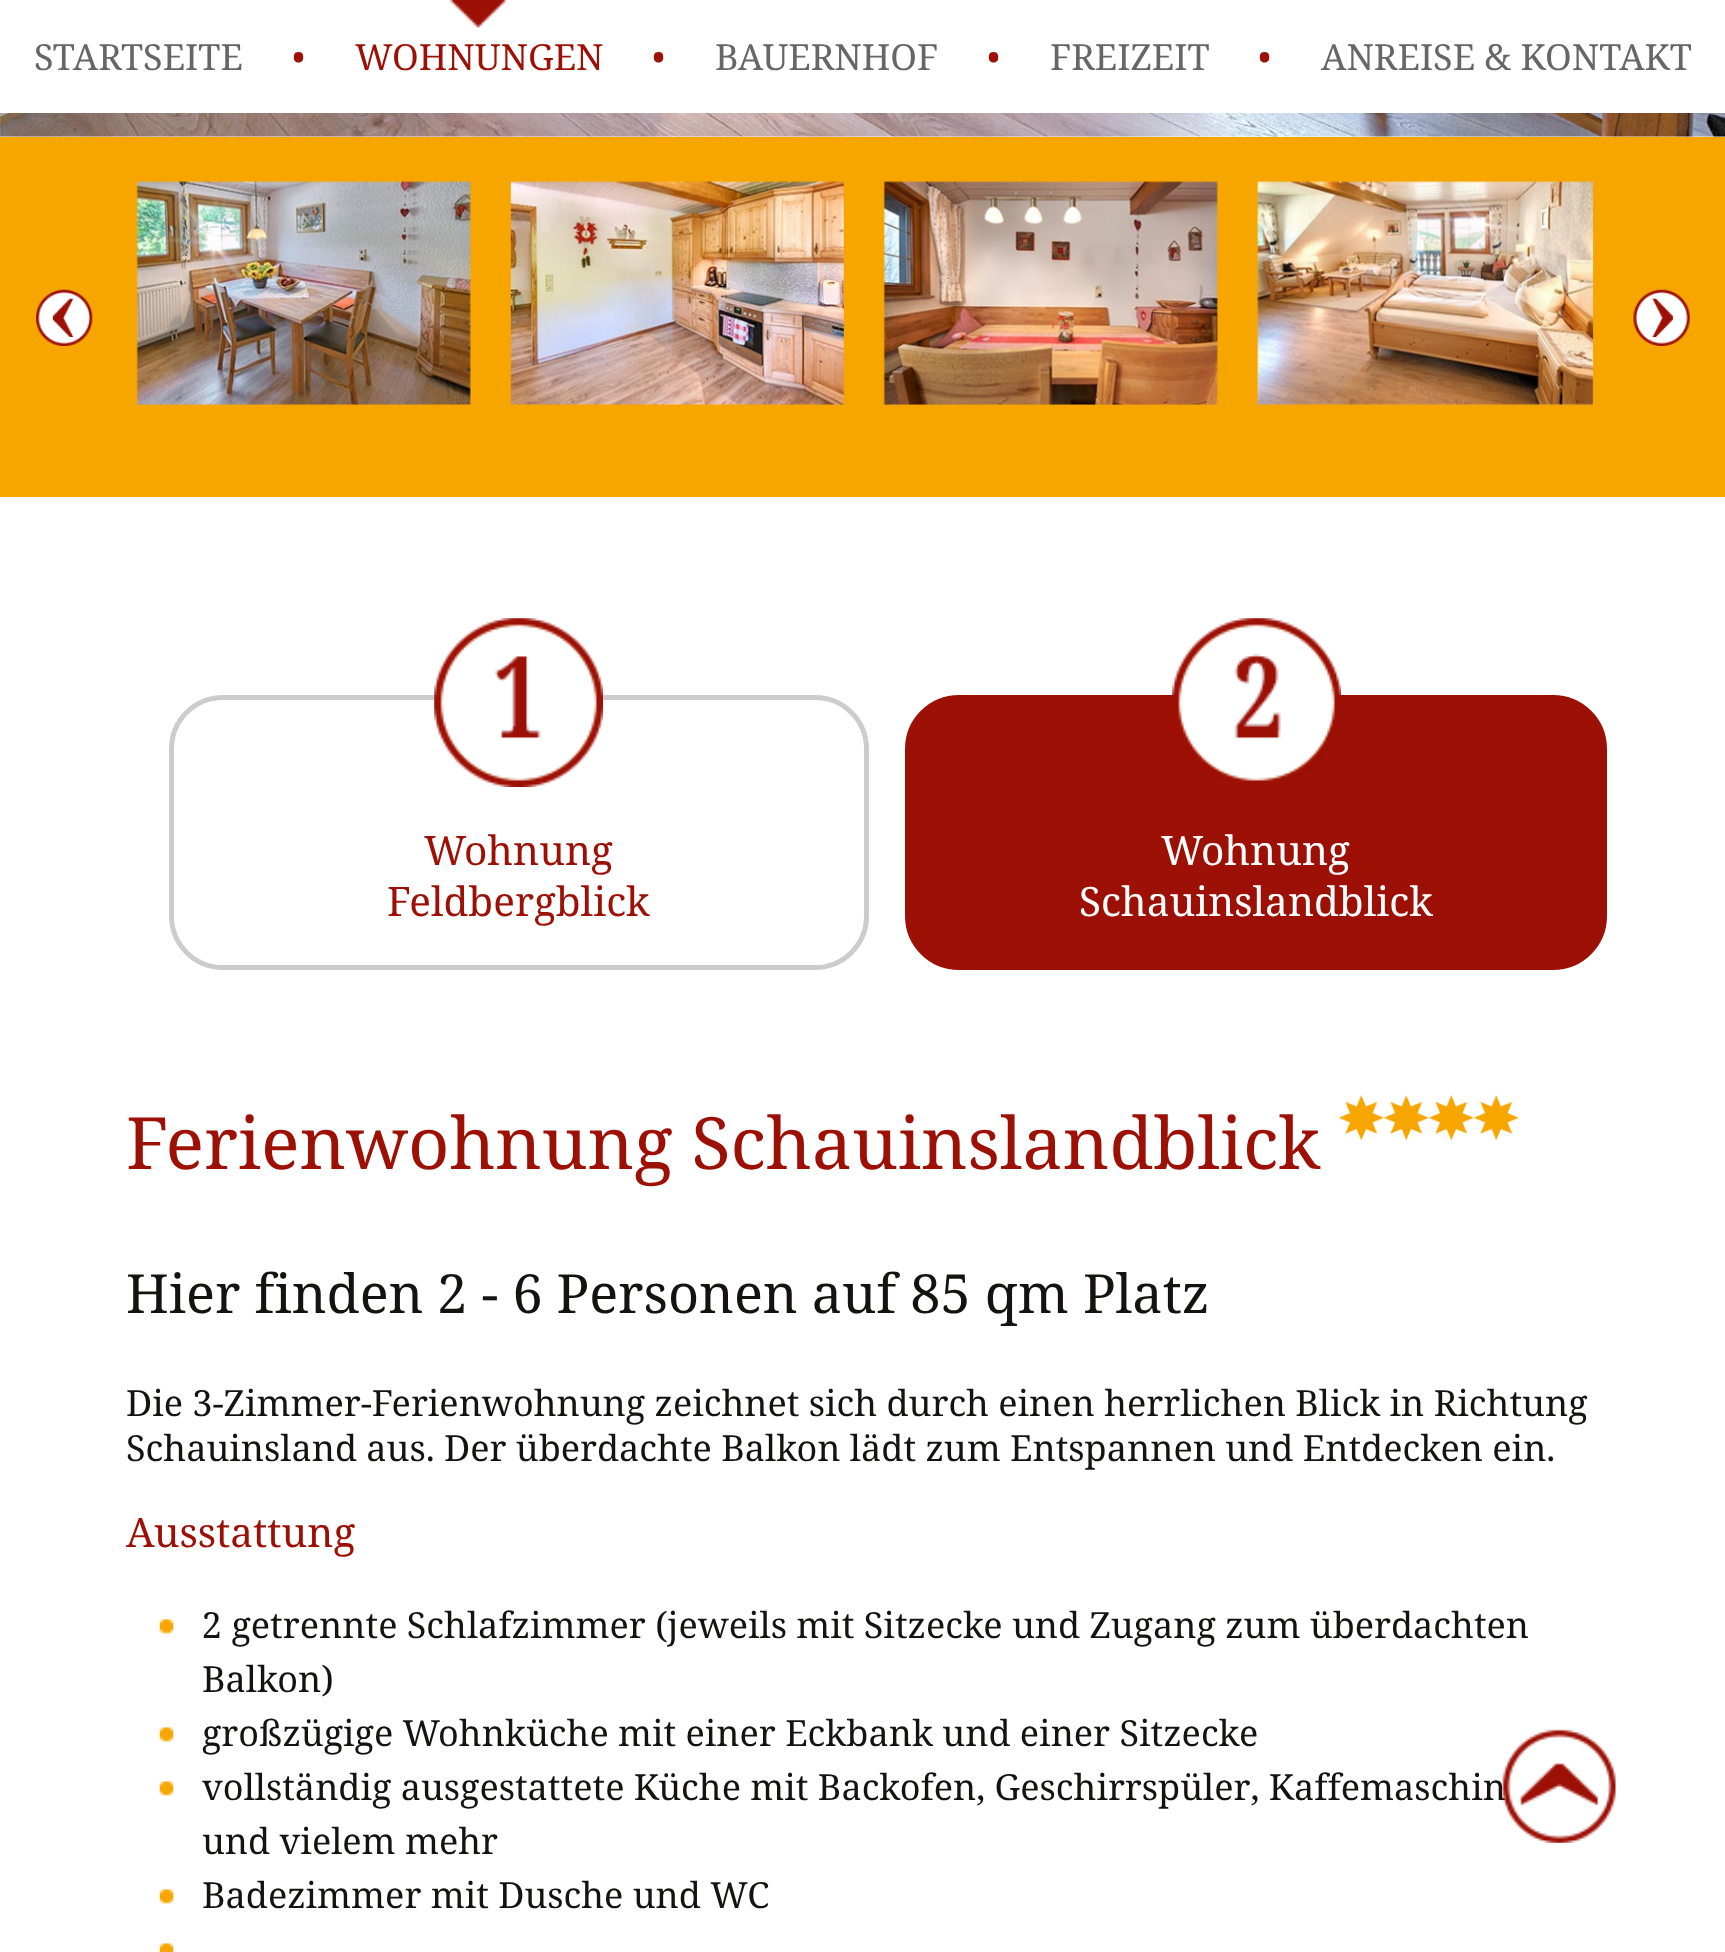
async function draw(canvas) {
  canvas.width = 1725
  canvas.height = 1952
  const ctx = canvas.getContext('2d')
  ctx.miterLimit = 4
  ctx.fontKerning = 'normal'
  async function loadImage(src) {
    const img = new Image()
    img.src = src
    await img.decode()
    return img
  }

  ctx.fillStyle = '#fff'
  ctx.fillRect(0, 0, 1725, 1952)
  ctx.font = '36px Noto Serif'
  ctx.fillStyle = '#666'
  ctx.fillText('STARTSEITE', 34, 70)
  ctx.fillStyle = '#9c1006'
  ctx.fillText('•', 292, 70)
  ctx.drawImage(await loadImage('image0.png'), 449, 0, 58, 28)
  ctx.fillText('WOHNUNGEN', 355, 70)
  ctx.fillText('•', 652, 70)
  ctx.fillStyle = '#666'
  ctx.fillText('BAUERNHOF', 715, 70)
  ctx.fillStyle = '#9c1006'
  ctx.fillText('•', 987, 70)
  ctx.fillStyle = '#666'
  ctx.fillText('FREIZEIT', 1050, 70)
  ctx.fillStyle = '#9c1006'
  ctx.fillText('•', 1258, 70)
  ctx.fillStyle = '#666'
  ctx.fillText('ANREISE & KONTAKT', 1321, 70)
  ctx.drawImage(await loadImage('image1.png'), 0, 113, 1725, 24)
  ctx.fillStyle = '#f7a600'
  ctx.fillRect(0, 137, 1725, 360)
  ctx.drawImage(await loadImage('image2.png'), 136, 181, 335, 224)
  ctx.drawImage(await loadImage('image3.png'), 510, 181, 334, 224)
  ctx.drawImage(await loadImage('image4.png'), 883, 181, 335, 224)
  ctx.drawImage(await loadImage('image5.png'), 1257, 181, 337, 225)
  ctx.drawImage(await loadImage('image6.png'), 36, 289, 57, 57)
  ctx.drawImage(await loadImage('image7.png'), 1633, 289, 57, 57)
  ctx.beginPath()
  ctx.roundRect(171.5, 697.5, 695, 270, 51.5)
  ctx.strokeStyle = '#ccc'
  ctx.lineWidth = 5
  ctx.stroke()
  ctx.drawImage(await loadImage('image8.png'), 434, 618, 169, 169)
  ctx.font = '40.5px Noto Serif'
  ctx.fillStyle = '#9c1006'
  ctx.fillText('Wohnung', 424, 865)
  ctx.fillText('Feldbergblick', 387, 916)
  ctx.beginPath()
  ctx.roundRect(907.5, 697.5, 697, 270, 51.5)
  ctx.fill()
  ctx.strokeStyle = '#9c1006'
  ctx.stroke()
  ctx.drawImage(await loadImage('image9.png'), 1172, 618, 169, 163)
  ctx.fillStyle = '#fff'
  ctx.fillText('Wohnung', 1161, 865)
  ctx.fillText('Schauinslandblick', 1079, 916)
  ctx.font = '72px Noto Serif'
  ctx.fillStyle = '#9c1006'
  ctx.fillText('Ferienwohnung Schauinslandblick', 126, 1169)
  ctx.drawImage(await loadImage('image10.png'), 1338, 1095, 46, 46)
  ctx.drawImage(await loadImage('image11.png'), 1383, 1095, 46, 46)
  ctx.drawImage(await loadImage('image12.png'), 1428, 1095, 46, 46)
  ctx.drawImage(await loadImage('image13.png'), 1473, 1095, 46, 46)
  ctx.font = '54px Noto Serif'
  ctx.fillStyle = '#141312'
  ctx.fillText('Hier finden 2 - 6 Personen auf 85 qm Platz', 126, 1313)
  ctx.font = '36px Noto Serif'
  ctx.fillText('Die 3-Zimmer-Ferienwohnung zeichnet sich durch einen herrlichen Blick in Richtung', 126, 1416)
  ctx.fillText('Schauinsland aus. Der überdachte Balkon lädt zum Entspannen und Entdecken ein.', 126, 1461)
  ctx.font = '40.5px Noto Serif'
  ctx.fillStyle = '#9c1006'
  ctx.fillText('Ausstattung', 126, 1547)
  ctx.drawImage(await loadImage('image14.png'), 159, 1619, 15, 15)
  ctx.font = '36px Noto Serif'
  ctx.fillStyle = '#141312'
  ctx.fillText('2 getrennte Schlafzimmer (jeweils mit Sitzecke und Zugang zum überdachten', 202, 1638)
  ctx.fillText('Balkon)', 202, 1692)
  ctx.drawImage(await loadImage('image14.png'), 159, 1727, 15, 15)
  ctx.fillText('großzügige Wohnküche mit einer Eckbank und einer Sitzecke', 202, 1746)
  ctx.drawImage(await loadImage('image14.png'), 159, 1781, 15, 15)
  ctx.fillText('vollständig ausgestattete Küche mit Backofen, Geschirrspüler, Kaffemaschin', 202, 1800)
  ctx.fillText('und vielem mehr', 202, 1854)
  ctx.drawImage(await loadImage('image14.png'), 159, 1889, 15, 15)
  ctx.fillText('Badezimmer mit Dusche und WC', 202, 1908)
  ctx.drawImage(await loadImage('image15.png'), 159, 1943, 15, 9)
  ctx.drawImage(await loadImage('image16.png'), 1502, 1729, 114, 114)
}

draw(document.querySelector('canvas'))
